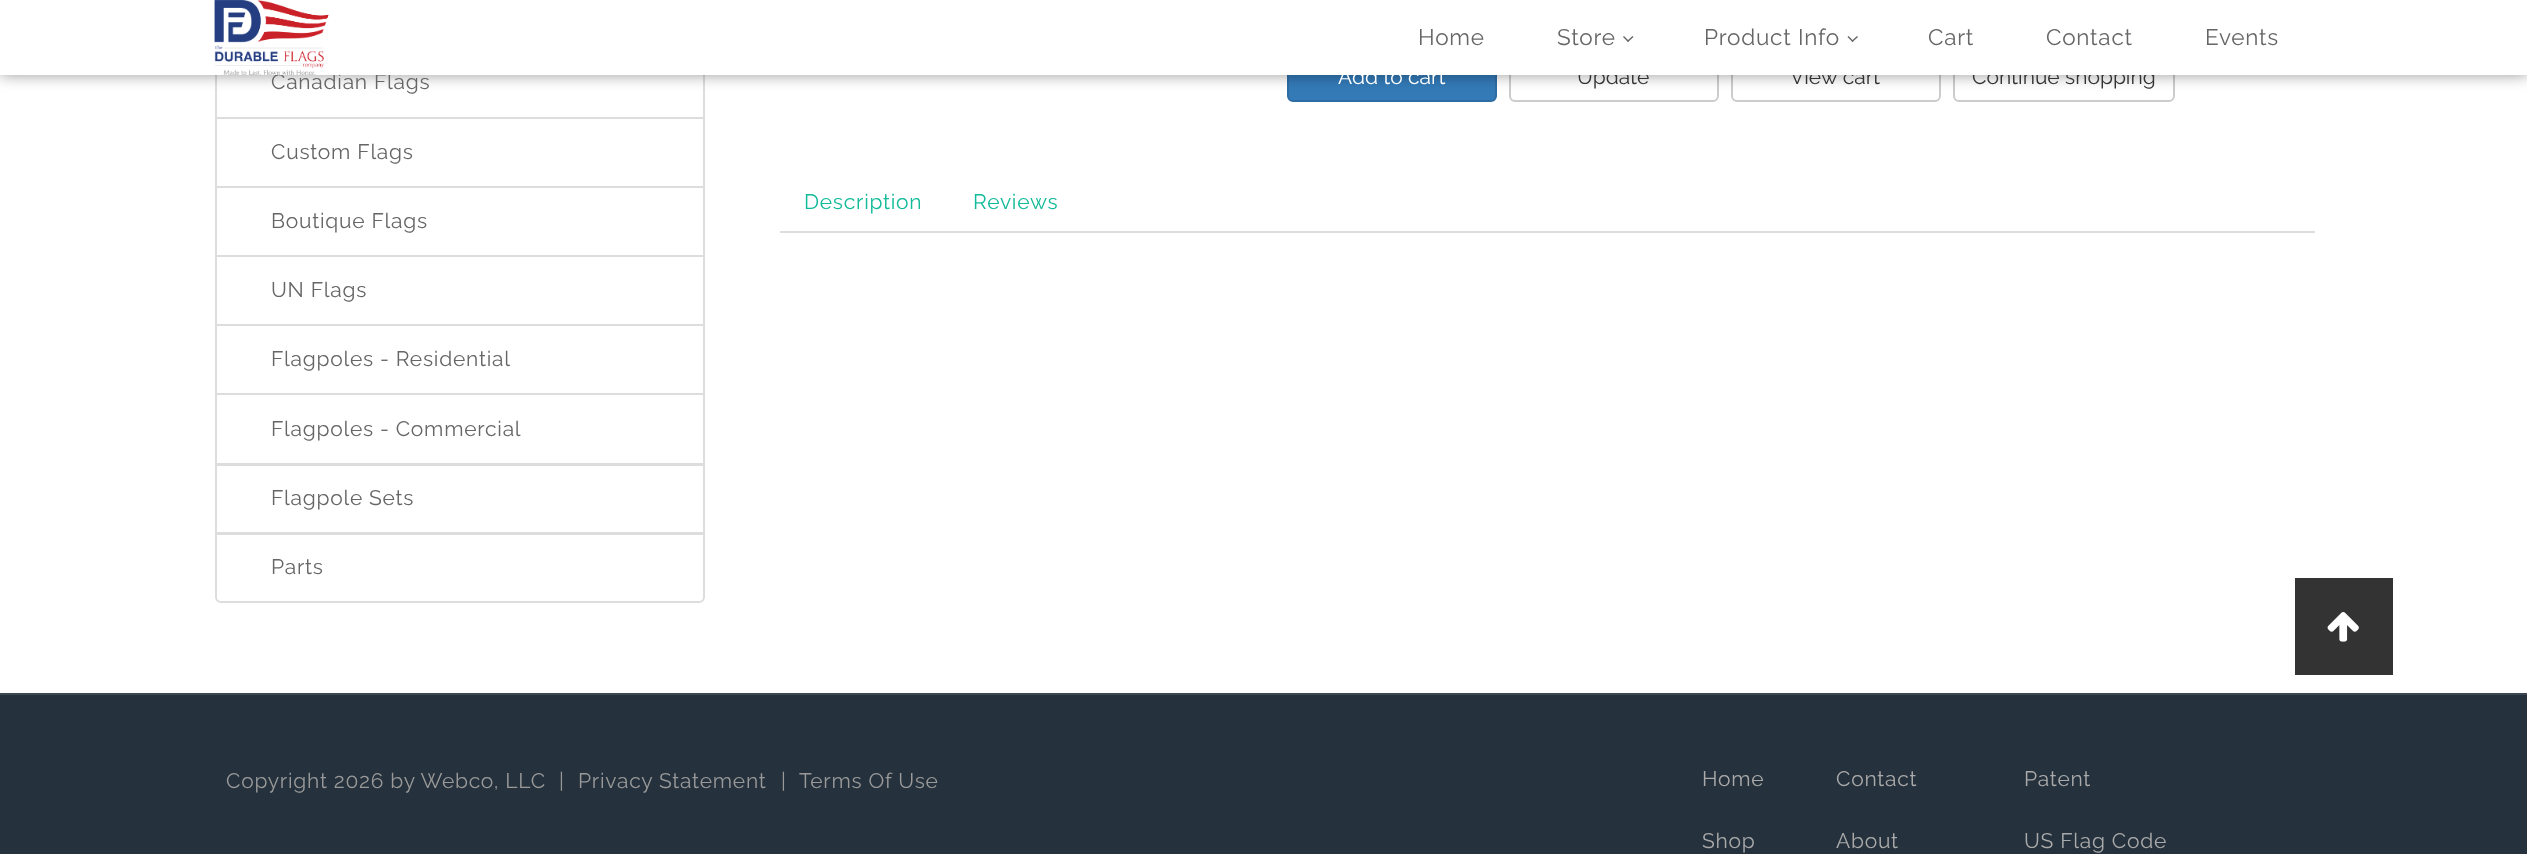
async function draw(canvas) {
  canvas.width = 2527
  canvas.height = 854
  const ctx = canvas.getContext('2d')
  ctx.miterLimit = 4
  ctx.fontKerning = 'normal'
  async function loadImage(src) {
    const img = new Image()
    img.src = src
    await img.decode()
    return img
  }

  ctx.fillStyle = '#fff'
  ctx.fillRect(0, 0, 2527, 854)
  ctx.strokeStyle = '#ddd'
  ctx.lineWidth = 2
  ctx.strokeRect(216, 49, 488, 69)
  ctx.fillStyle = '#337ab7'
  ctx.beginPath()
  ctx.roundRect(1288, 52, 208, 49, 5)
  ctx.fill()
  ctx.strokeStyle = '#2e6da4'
  ctx.stroke()
  ctx.beginPath()
  ctx.roundRect(1510, 52, 208, 49, 5)
  ctx.strokeStyle = '#ccc'
  ctx.stroke()
  ctx.beginPath()
  ctx.roundRect(1732, 52, 208, 49, 5)
  ctx.stroke()
  ctx.beginPath()
  ctx.roundRect(1954, 52, 220, 49, 5)
  ctx.stroke()
  ctx.fillStyle = '#00000066'
  ctx.filter = 'blur(7.5px)'
  ctx.beginPath()
  ctx.rect(0, 0, 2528, 75)
  ctx.fill()
  ctx.filter = 'none'
  ctx.letterSpacing = '0.75px'
  ctx.font = '21px Raleway'
  ctx.fillStyle = '#666'
  ctx.fillText('Canadian Flags', 271, 89)
  ctx.letterSpacing = '0px'
  ctx.fillStyle = '#333'
  ctx.fillText('Update', 1577, 84)
  ctx.fillText('View cart', 1790, 84)
  ctx.fillText('Continue shopping', 1972, 84)
  ctx.fillStyle = '#fff'
  ctx.fillRect(0, 0, 2527, 75)
  ctx.drawImage(await loadImage('image0.png'), 214, 0, 115, 75)
  ctx.letterSpacing = '0.75px'
  ctx.font = '22.5px Raleway'
  ctx.fillStyle = '#666'
  ctx.fillText('Home', 1418, 45)
  ctx.fillText('Store', 1557, 45)
  ctx.beginPath()
  ctx.moveTo(1632.5, 36)
  ctx.lineTo(1633.5, 37)
  ctx.lineTo(1628, 42)
  ctx.lineTo(1627, 41)
  ctx.closePath()
  ctx.fill()
  ctx.beginPath()
  ctx.moveTo(1624, 36)
  ctx.lineTo(1629, 41)
  ctx.lineTo(1628, 42)
  ctx.lineTo(1623, 37)
  ctx.closePath()
  ctx.fill()
  ctx.fillText('Product Info', 1704, 45)
  ctx.beginPath()
  ctx.moveTo(1857, 36)
  ctx.lineTo(1858, 37)
  ctx.lineTo(1852.5, 42)
  ctx.lineTo(1851.5, 41)
  ctx.closePath()
  ctx.fill()
  ctx.beginPath()
  ctx.moveTo(1848.5, 36)
  ctx.lineTo(1853.5, 41)
  ctx.lineTo(1852.5, 42)
  ctx.lineTo(1847.5, 37)
  ctx.closePath()
  ctx.fill()
  ctx.fillText('Cart', 1928, 45)
  ctx.fillText('Contact', 2046, 45)
  ctx.fillText('Events', 2205, 45)
  ctx.strokeStyle = '#ddd'
  ctx.strokeRect(216, 118, 488, 69)
  ctx.font = '21px Raleway'
  ctx.fillText('Custom Flags', 271, 159)
  ctx.strokeRect(216, 187, 488, 69)
  ctx.fillText('Boutique Flags', 271, 228)
  ctx.strokeRect(216, 256, 488, 69)
  ctx.fillText('UN Flags', 271, 297)
  ctx.strokeRect(216, 325, 488, 69)
  ctx.fillText('Flagpoles - Residential', 271, 366)
  ctx.strokeRect(216, 394, 488, 70)
  ctx.fillText('Flagpoles - Commercial', 271, 436)
  ctx.strokeRect(216, 465, 488, 68)
  ctx.fillText('Flagpole Sets', 271, 505)
  ctx.fillStyle = '#fff'
  ctx.beginPath()
  ctx.roundRect(216, 534, 488, 68, [0, 0, 5, 5])
  ctx.fill()
  ctx.stroke()
  ctx.fillStyle = '#666'
  ctx.fillText('Parts', 271, 574)
  ctx.letterSpacing = '0px'
  ctx.fillStyle = '#fff'
  ctx.fillText('Add to cart', 1338, 84)
  ctx.fillStyle = '#ddd'
  ctx.fillRect(780, 231, 1535, 2)
  ctx.letterSpacing = '0.75px'
  ctx.fillStyle = '#11ba99'
  ctx.fillText('Description', 804, 209)
  ctx.fillText('Reviews', 973, 209)
  ctx.fillStyle = '#333'
  ctx.fillRect(2295, 578, 98, 97)
  ctx.drawImage(await loadImage('image1.png'), 2327, 612, 32, 30)
  ctx.fillStyle = '#3b4752'
  ctx.fillRect(0, 693, 2527, 2)
  ctx.fillStyle = '#25313c'
  ctx.fillRect(0, 695, 2527, 159)
  ctx.fillStyle = '#999'
  ctx.fillText('Copyright 2026 by Webco, LLC', 226, 788)
  ctx.fillText('|', 559, 788)
  ctx.fillText('Privacy Statement', 578, 788)
  ctx.fillText('|', 781, 788)
  ctx.fillText('Terms Of Use', 799, 788)
  ctx.fillStyle = '#aaa'
  ctx.fillText('Home', 1702, 786)
  ctx.fillText('Contact', 1836, 786)
  ctx.fillText('Patent', 2024, 786)
  ctx.fillText('Shop', 1702, 848)
  ctx.fillText('About', 1836, 848)
  ctx.fillText('US Flag Code', 2024, 848)
}

draw(document.querySelector('canvas'))
